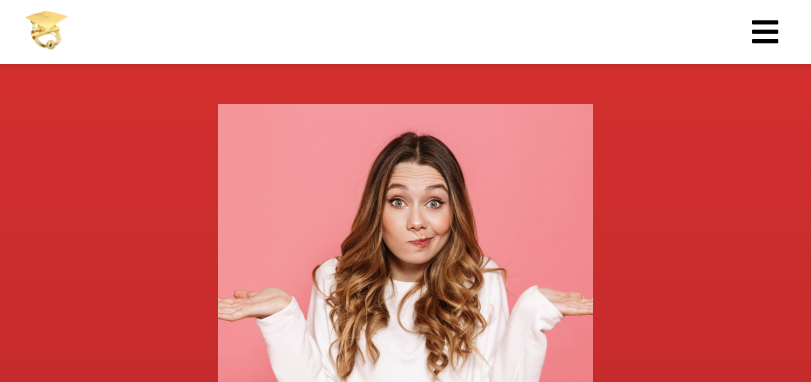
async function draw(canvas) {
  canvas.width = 811
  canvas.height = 382
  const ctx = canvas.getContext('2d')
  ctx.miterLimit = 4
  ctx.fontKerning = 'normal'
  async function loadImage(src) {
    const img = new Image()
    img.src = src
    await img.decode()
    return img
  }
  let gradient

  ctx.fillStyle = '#fff'
  ctx.fillRect(0, 0, 811, 382)
  gradient = ctx.createLinearGradient(405, 64, 406, 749)
  gradient.addColorStop(0, '#d32f2f')
  gradient.addColorStop(1, '#b72727')
  ctx.fillStyle = gradient
  ctx.fillRect(0, 64, 811, 318)
  ctx.save()
  ctx.beginPath()
  ctx.rect(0, 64, 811, 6)
  ctx.clip()
  ctx.fillStyle = '#00000033'
  ctx.filter = 'blur(5px)'
  ctx.beginPath()
  ctx.rect(0, 0, 811, 64)
  ctx.fill()
  ctx.filter = 'none'
  ctx.restore()
  ctx.drawImage(await loadImage('image0.png'), 24, 10, 45, 40)
  ctx.drawImage(await loadImage('image1.png'), 752, 20, 27, 24)
  ctx.drawImage(await loadImage('image2.png'), 218, 104, 375, 278)
}

draw(document.querySelector('canvas'))
